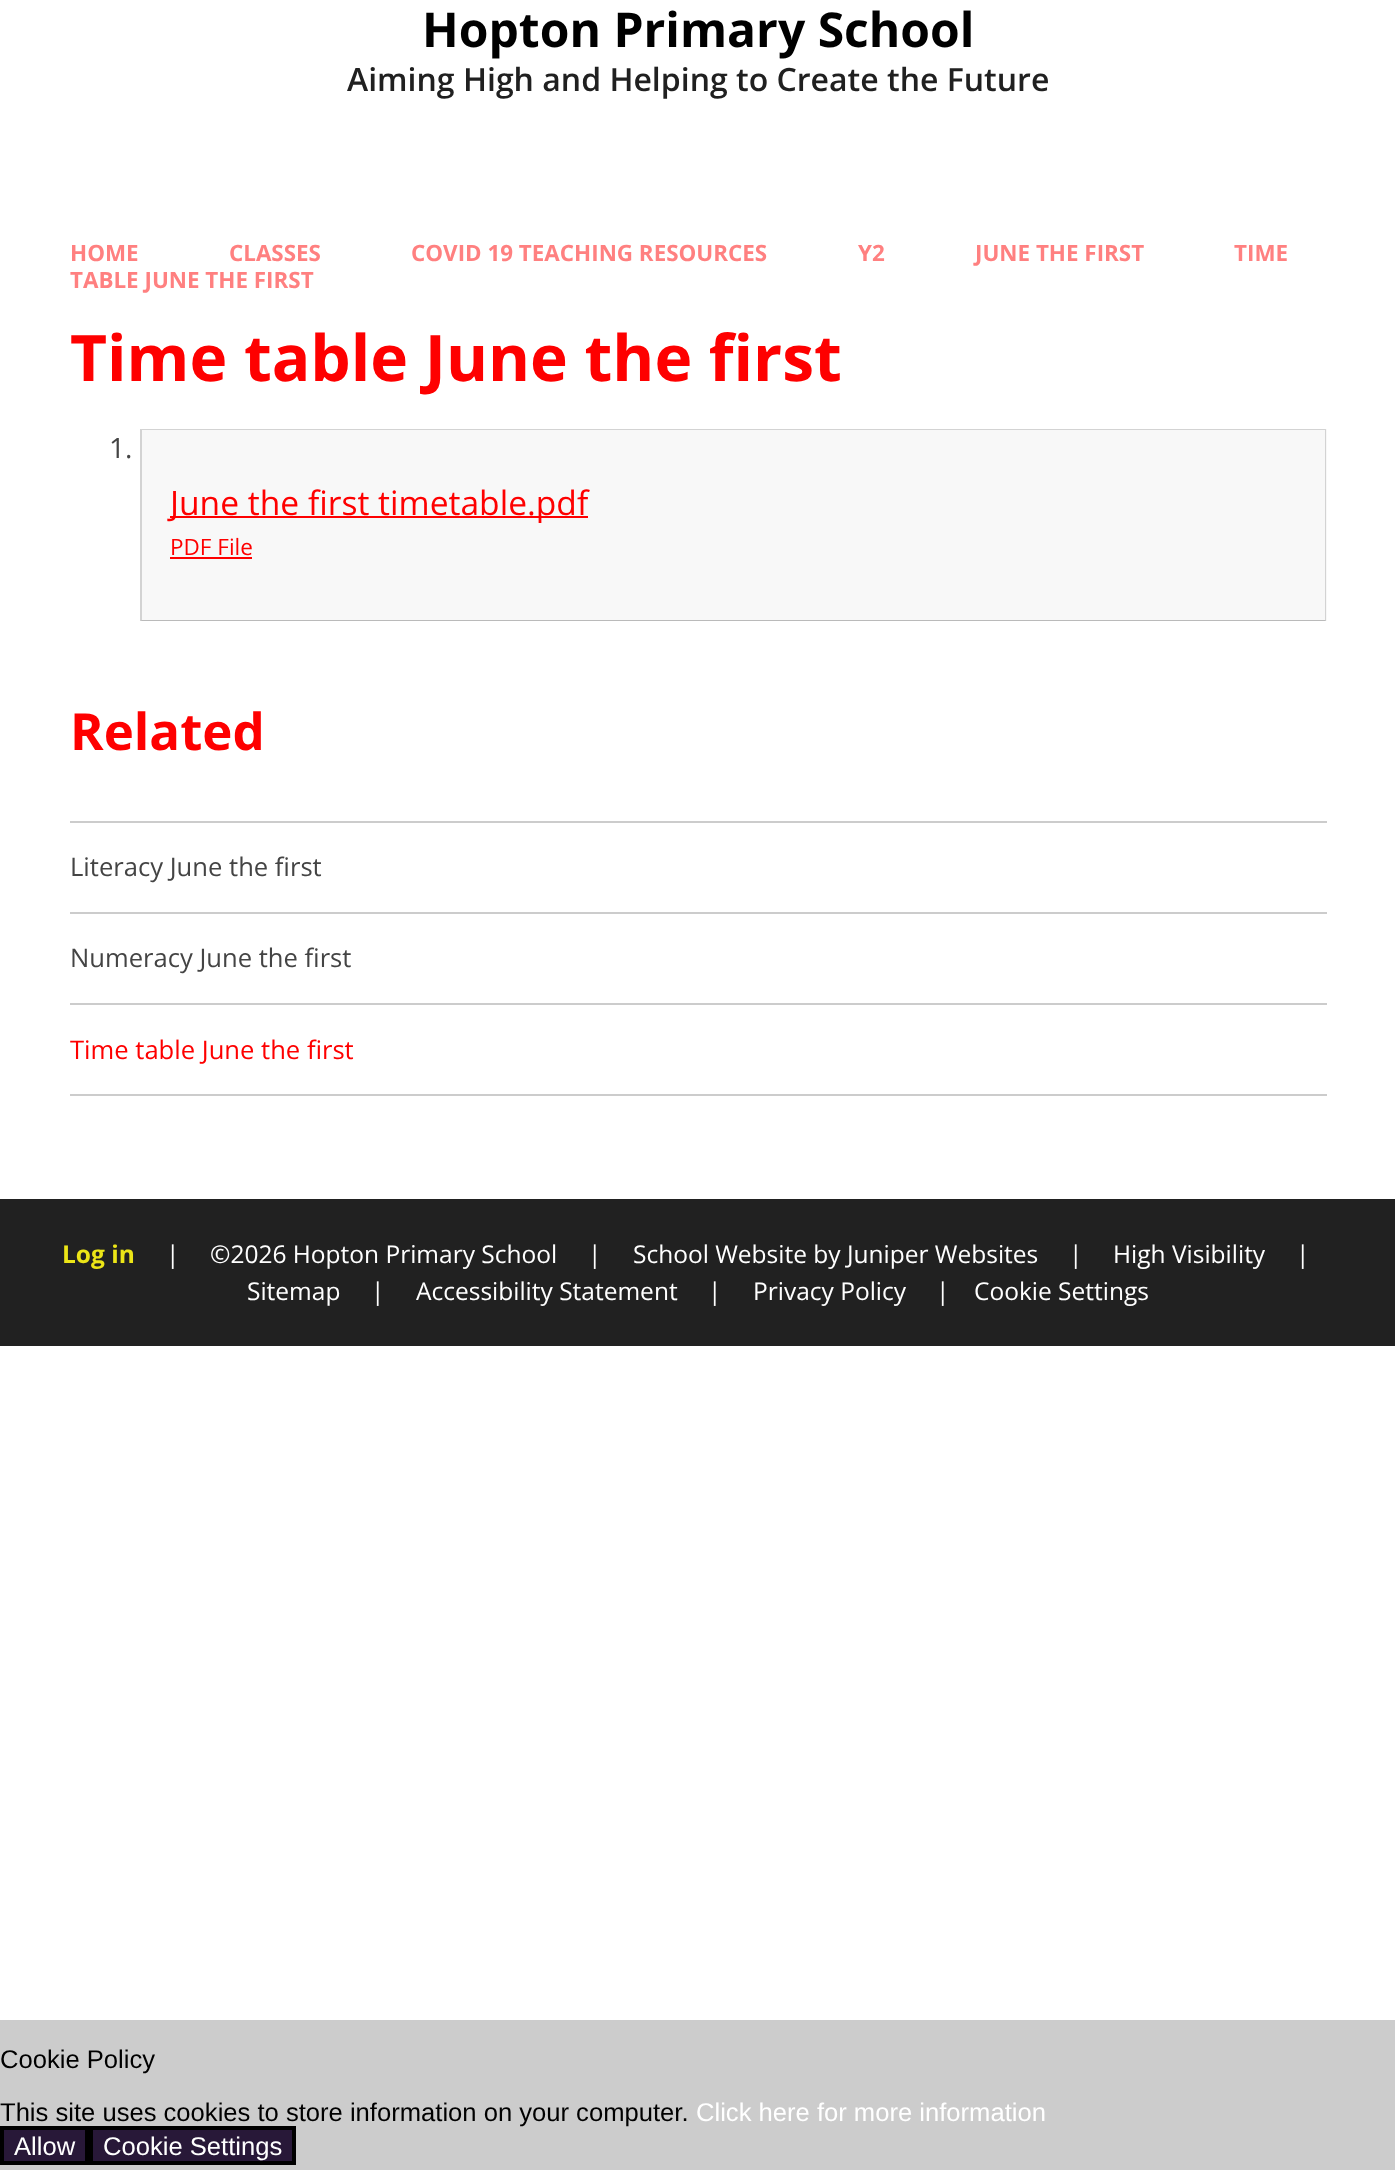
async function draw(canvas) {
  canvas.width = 1395
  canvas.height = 2170
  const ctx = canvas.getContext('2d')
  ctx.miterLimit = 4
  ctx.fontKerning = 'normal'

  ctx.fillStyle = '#ccc'
  ctx.fillRect(0, 0, 1395, 2170)
  ctx.fillStyle = '#fff'
  ctx.fillRect(0, 0, 1395, 2020)
  ctx.font = 'bold 48px Open Sans'
  ctx.fillStyle = '#000'
  ctx.fillText('Hopton Primary School', 422, 47)
  ctx.font = '600 32px Open Sans'
  ctx.fillStyle = '#202020'
  ctx.fillText('Aiming High and Helping to Create the Future', 347, 91)
  ctx.font = 'bold 22.4px Open Sans'
  ctx.fillStyle = '#ff8080'
  ctx.fillText('HOME', 70, 261)
  ctx.fillText('CLASSES', 229, 261)
  ctx.fillText('COVID 19 TEACHING RESOURCES', 411, 261)
  ctx.fillText('Y2', 858, 261)
  ctx.fillText('JUNE THE FIRST', 975, 261)
  ctx.fillText('TIME', 1234, 261)
  ctx.fillText('TABLE JUNE THE FIRST', 70, 288)
  ctx.font = 'bold 64px Open Sans'
  ctx.fillStyle = '#fe0000'
  ctx.fillText('Time table June the first', 70, 381)
  ctx.font = '28px Open Sans'
  ctx.fillStyle = '#444'
  ctx.fillText('1.', 109, 458)
  ctx.fillStyle = '#f8f8f8'
  ctx.fillRect(140, 429, 1187, 192)
  ctx.fillStyle = '#d3d3d3'
  ctx.beginPath()
  ctx.moveTo(140, 429)
  ctx.lineTo(1326, 429)
  ctx.lineTo(1325, 430)
  ctx.lineTo(142, 430)
  ctx.closePath()
  ctx.fill()
  ctx.fillStyle = '#00000026'
  ctx.beginPath()
  ctx.moveTo(1326, 429)
  ctx.lineTo(1326, 621)
  ctx.lineTo(1325, 620)
  ctx.lineTo(1325, 430)
  ctx.closePath()
  ctx.fill()
  ctx.fillStyle = '#00000040'
  ctx.beginPath()
  ctx.moveTo(1326, 621)
  ctx.lineTo(140, 621)
  ctx.lineTo(142, 620)
  ctx.lineTo(1325, 620)
  ctx.closePath()
  ctx.fill()
  ctx.fillStyle = '#00000026'
  ctx.beginPath()
  ctx.moveTo(140, 621)
  ctx.lineTo(140, 429)
  ctx.lineTo(142, 430)
  ctx.lineTo(142, 620)
  ctx.closePath()
  ctx.fill()
  ctx.fillStyle = '#fe0000'
  ctx.fillRect(170, 516, 418, 2)
  ctx.font = '33.6px Open Sans'
  ctx.fillText('June the first timetable.pdf', 170, 515)
  ctx.font = '22.5px Open Sans'
  ctx.fillText('PDF File', 170, 555)
  ctx.fillRect(170, 557, 82, 2)
  ctx.font = 'bold 51px Open Sans'
  ctx.fillText('Related', 70, 750)
  ctx.fillStyle = '#ccc'
  ctx.fillRect(70, 821, 1257, 2)
  ctx.font = '25.6px Open Sans'
  ctx.fillStyle = '#444'
  ctx.fillText('Literacy June the first', 70, 876)
  ctx.fillStyle = '#ccc'
  ctx.fillRect(70, 912, 1257, 2)
  ctx.fillStyle = '#444'
  ctx.fillText('Numeracy June the first', 70, 967)
  ctx.fillStyle = '#ccc'
  ctx.fillRect(70, 1003, 1257, 2)
  ctx.fillRect(70, 1094, 1257, 2)
  ctx.fillStyle = '#fe0000'
  ctx.fillText('Time table June the first', 70, 1059)
  ctx.fillStyle = '#212121'
  ctx.fillRect(0, 1199, 1395, 147)
  ctx.font = 'bold 24.5px Open Sans'
  ctx.fillStyle = '#ece517'
  ctx.fillText('Log in', 62, 1263)
  ctx.font = '24.5px Open Sans'
  ctx.fillStyle = '#fff'
  ctx.fillText('|', 166, 1263)
  ctx.fillText('©2026 Hopton Primary School', 210, 1263)
  ctx.fillText('|', 588, 1263)
  ctx.fillText('School Website by Juniper Websites', 633, 1263)
  ctx.fillText('|', 1069, 1263)
  ctx.fillText('High Visibility', 1113, 1263)
  ctx.fillText('|', 1296, 1263)
  ctx.fillText('Sitemap', 247, 1300)
  ctx.fillText('|', 371, 1300)
  ctx.fillText('Accessibility Statement', 416, 1300)
  ctx.fillText('|', 708, 1300)
  ctx.fillText('Privacy Policy', 753, 1300)
  ctx.fillText('|', 936, 1300)
  ctx.fillText('Cookie Settings', 974, 1300)
  ctx.font = '25.6px Liberation Sans'
  ctx.fillStyle = '#000'
  ctx.fillText('Cookie Policy', 0, 2068)
  ctx.fillText('This site uses cookies to store information on your computer.', 0, 2121)
  ctx.fillStyle = '#fff'
  ctx.fillText('Click here for more information', 696, 2121)
  ctx.fillStyle = '#281838'
  ctx.beginPath()
  ctx.rect(2, 2128, 85, 35)
  ctx.fill()
  ctx.strokeStyle = '#000'
  ctx.lineWidth = 4
  ctx.stroke()
  ctx.fillStyle = '#fff'
  ctx.fillText('Allow', 14, 2155)
  ctx.fillStyle = '#281838'
  ctx.beginPath()
  ctx.rect(91, 2128, 203, 35)
  ctx.fill()
  ctx.stroke()
  ctx.fillStyle = '#fff'
  ctx.fillText('Cookie Settings', 103, 2155)
}

draw(document.querySelector('canvas'))
